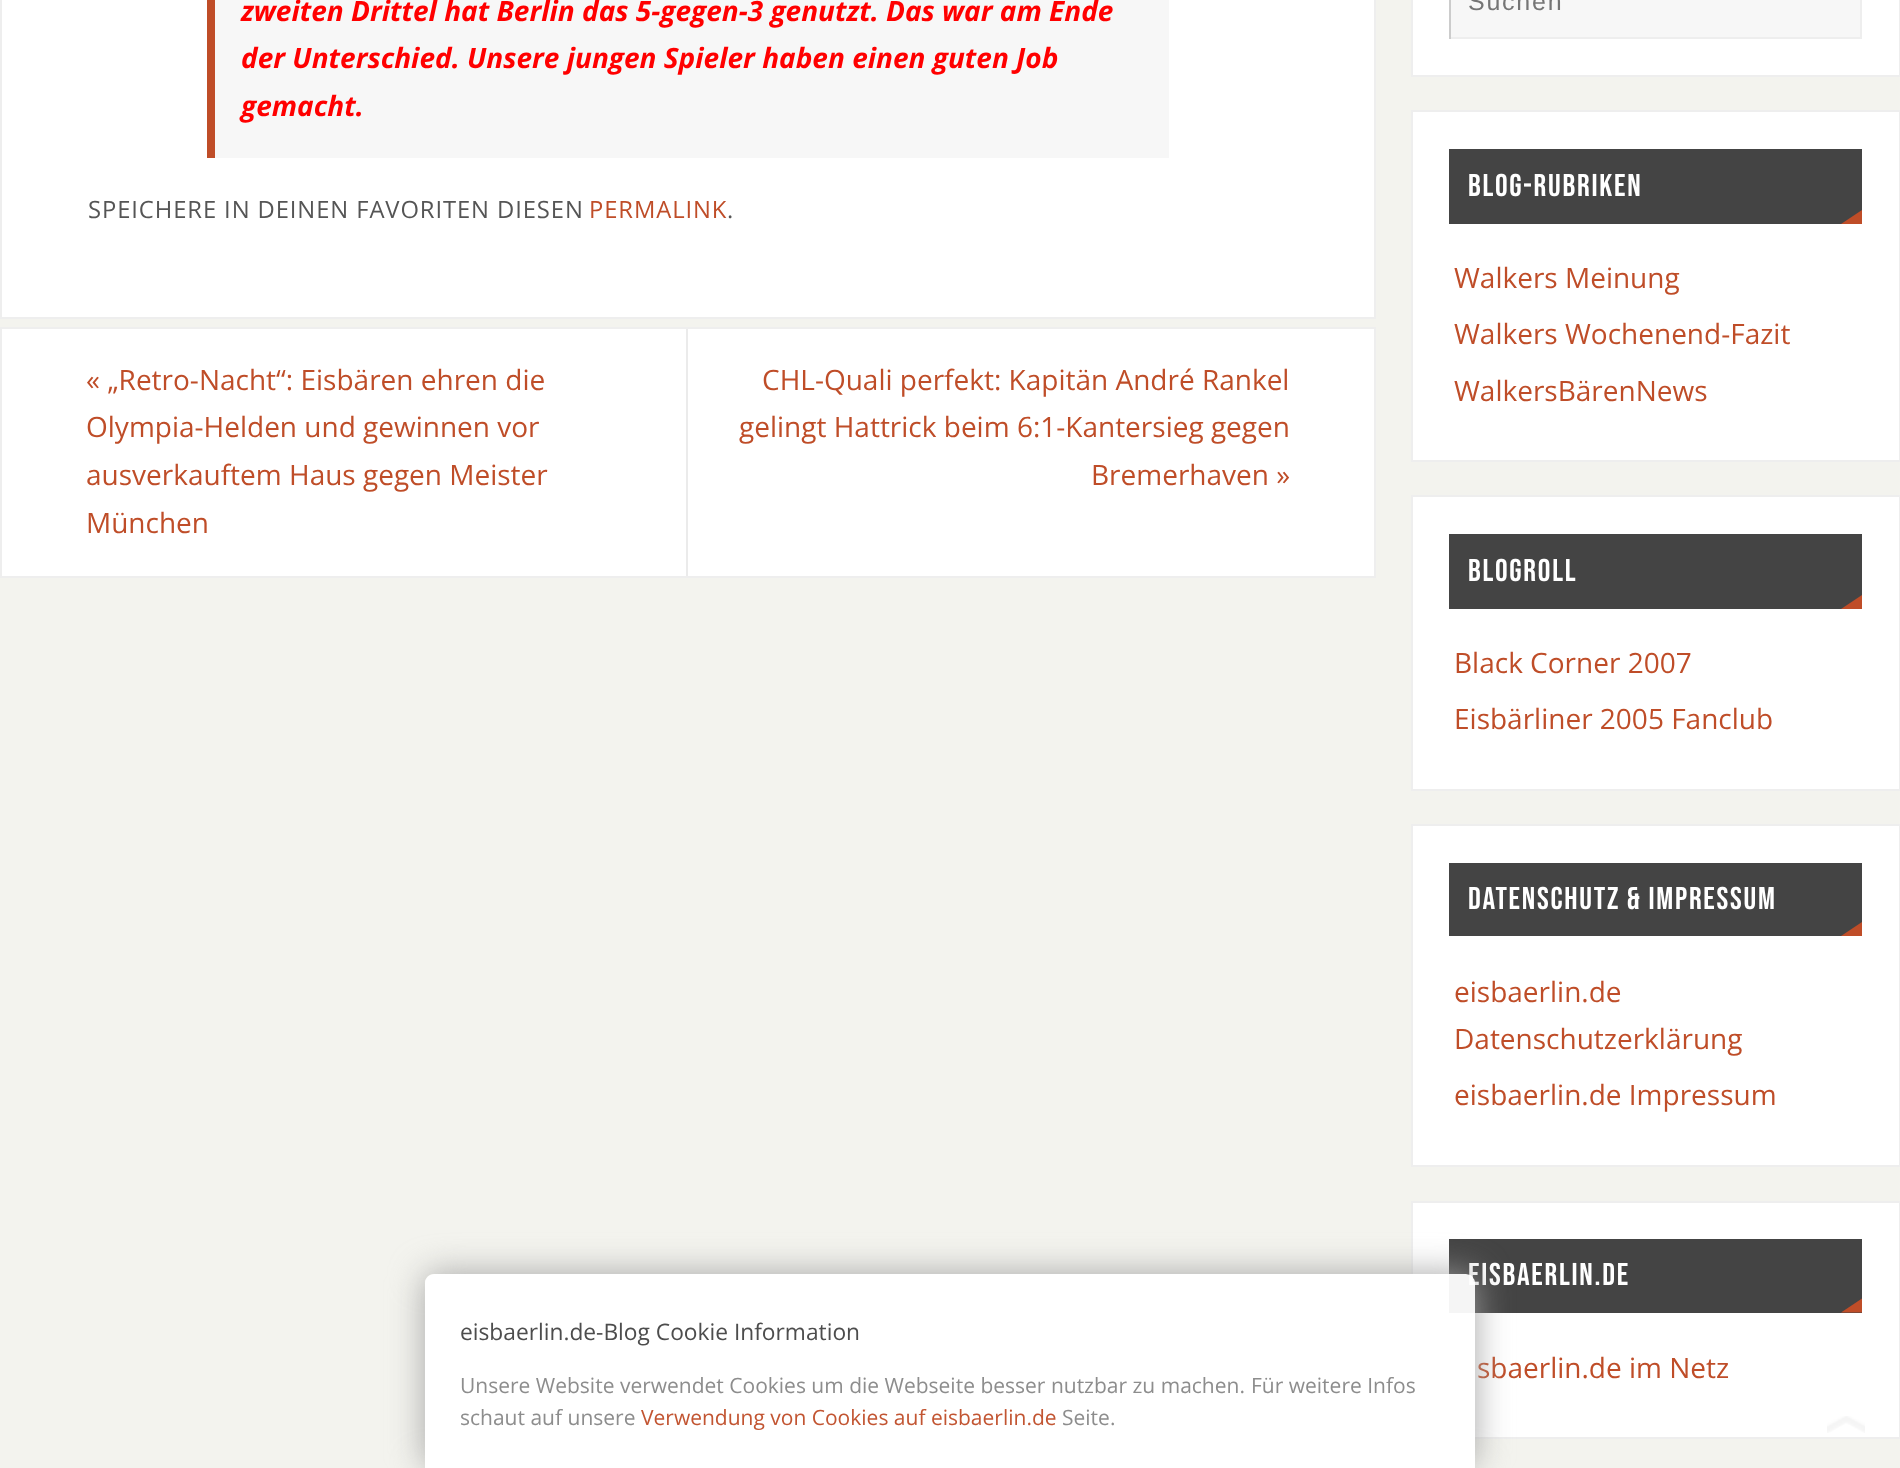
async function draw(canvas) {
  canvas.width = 1900
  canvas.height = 1468
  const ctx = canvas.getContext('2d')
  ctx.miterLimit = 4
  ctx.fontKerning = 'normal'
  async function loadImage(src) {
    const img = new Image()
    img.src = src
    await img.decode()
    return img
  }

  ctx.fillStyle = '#f3f3ee'
  ctx.fillRect(0, 0, 1900, 1468)
  ctx.fillStyle = '#fff'
  ctx.beginPath()
  ctx.rect(1, -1, 1374, 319)
  ctx.fill()
  ctx.strokeStyle = '#eee'
  ctx.lineWidth = 2
  ctx.stroke()
  ctx.fillStyle = '#f7f7f7'
  ctx.fillRect(215, 0, 954, 158)
  ctx.fillStyle = '#bf4d28'
  ctx.fillRect(207, 0, 8, 158)
  ctx.font = 'italic bold 28px Open Sans'
  ctx.fillStyle = '#f00'
  ctx.fillText('zweiten Drittel hat Berlin das 5-gegen-3 genutzt. Das war am Ende', 241, 21)
  ctx.fillText('der Unterschied. Unsere jungen Spieler haben einen guten Job', 241, 68)
  ctx.fillText('gemacht.', 241, 116)
  ctx.letterSpacing = '0.9px'
  ctx.font = '23.8px Open Sans'
  ctx.fillStyle = '#555'
  ctx.fillText('SPEICHERE IN DEINEN FAVORITEN DIESEN', 88, 218)
  ctx.fillStyle = '#bf4d28'
  ctx.fillText('PERMALINK', 589, 218)
  ctx.fillStyle = '#555'
  ctx.fillText('.', 727, 218)
  ctx.fillStyle = '#fff'
  ctx.beginPath()
  ctx.rect(1, 328, 1374, 249)
  ctx.fill()
  ctx.stroke()
  ctx.fillStyle = '#ebebeb'
  ctx.fillRect(686, 329, 2, 247)
  ctx.letterSpacing = '0px'
  ctx.font = '28px Open Sans'
  ctx.fillStyle = '#bf4d28'
  ctx.fillText('« „Retro-Nacht“: Eisbären ehren die', 86, 390)
  ctx.fillText('Olympia-Helden und gewinnen vor', 86, 437)
  ctx.fillText('ausverkauftem Haus gegen Meister', 86, 485)
  ctx.fillText('München', 86, 533)
  ctx.fillText('CHL-Quali perfekt: Kapitän André Rankel', 762, 390)
  ctx.fillText('gelingt Hattrick beim 6:1-Kantersieg gegen', 739, 437)
  ctx.fillText('Bremerhaven »', 1091, 485)
  ctx.fillStyle = '#fff'
  ctx.beginPath()
  ctx.rect(1412, -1, 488, 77)
  ctx.fill()
  ctx.stroke()
  ctx.fillStyle = '#f7f7f7'
  ctx.fillRect(1451, 0, 409, 37)
  ctx.fillStyle = '#eee'
  ctx.fillRect(1860, 0, 2, 39)
  ctx.fillRect(1449, 37, 413, 2)
  ctx.fillStyle = '#ccc'
  ctx.fillRect(1449, 0, 2, 39)
  ctx.letterSpacing = '1.75px'
  ctx.font = '25px Liberation Sans'
  ctx.fillStyle = '#757575'
  ctx.fillText('Suchen', 1468, 10)
  ctx.fillStyle = '#fff'
  ctx.beginPath()
  ctx.rect(1412, 111, 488, 350)
  ctx.fill()
  ctx.stroke()
  ctx.fillStyle = '#444'
  ctx.fillRect(1449, 149, 413, 75)
  ctx.font = '31.5px Bebas Neue'
  ctx.fillStyle = '#fff'
  ctx.fillText('BLOG-RUBRIKEN', 1468, 196)
  ctx.fillStyle = '#bf4d28'
  ctx.beginPath()
  ctx.moveTo(1862, 224)
  ctx.lineTo(1841, 224)
  ctx.lineTo(1862, 210)
  ctx.closePath()
  ctx.fill()
  ctx.letterSpacing = '0px'
  ctx.font = '28px Open Sans'
  ctx.fillText('Walkers Meinung', 1454, 288)
  ctx.fillText('Walkers Wochenend-Fazit', 1454, 344)
  ctx.fillText('WalkersBärenNews', 1454, 401)
  ctx.fillStyle = '#fff'
  ctx.beginPath()
  ctx.rect(1412, 496, 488, 294)
  ctx.fill()
  ctx.stroke()
  ctx.fillStyle = '#444'
  ctx.fillRect(1449, 534, 413, 75)
  ctx.letterSpacing = '1.75px'
  ctx.font = '31.5px Bebas Neue'
  ctx.fillStyle = '#fff'
  ctx.fillText('BLOGROLL', 1468, 581)
  ctx.fillStyle = '#bf4d28'
  ctx.beginPath()
  ctx.moveTo(1862, 609)
  ctx.lineTo(1841, 609)
  ctx.lineTo(1862, 595)
  ctx.closePath()
  ctx.fill()
  ctx.letterSpacing = '0px'
  ctx.font = '28px Open Sans'
  ctx.fillText('Black Corner 2007', 1454, 673)
  ctx.fillText('Eisbärliner 2005 Fanclub', 1454, 729)
  ctx.fillStyle = '#fff'
  ctx.beginPath()
  ctx.rect(1412, 825, 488, 341)
  ctx.fill()
  ctx.stroke()
  ctx.fillStyle = '#444'
  ctx.fillRect(1449, 863, 413, 73)
  ctx.letterSpacing = '1.75px'
  ctx.font = '31.5px Bebas Neue'
  ctx.fillStyle = '#fff'
  ctx.fillText('DATENSCHUTZ & IMPRESSUM', 1468, 909)
  ctx.fillStyle = '#bf4d28'
  ctx.beginPath()
  ctx.moveTo(1862, 936)
  ctx.lineTo(1841, 936)
  ctx.lineTo(1862, 922)
  ctx.closePath()
  ctx.fill()
  ctx.letterSpacing = '0px'
  ctx.font = '28px Open Sans'
  ctx.fillText('eisbaerlin.de', 1454, 1002)
  ctx.fillText('Datenschutzerklärung', 1454, 1049)
  ctx.fillText('eisbaerlin.de Impressum', 1454, 1105)
  ctx.fillStyle = '#fff'
  ctx.beginPath()
  ctx.rect(1412, 1202, 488, 236)
  ctx.fill()
  ctx.stroke()
  ctx.fillStyle = '#444'
  ctx.fillRect(1449, 1239, 413, 74)
  ctx.letterSpacing = '1.75px'
  ctx.font = '31.5px Bebas Neue'
  ctx.fillStyle = '#fff'
  ctx.fillText('EISBAERLIN.DE', 1468, 1285)
  ctx.fillStyle = '#bf4d28'
  ctx.beginPath()
  ctx.moveTo(1862, 1312.5)
  ctx.lineTo(1841, 1312.5)
  ctx.lineTo(1862, 1298.5)
  ctx.closePath()
  ctx.fill()
  ctx.letterSpacing = '0px'
  ctx.font = '28px Open Sans'
  ctx.fillText('sbaerlin.de im Netz', 1477, 1378)
  ctx.save()
  ctx.beginPath()
  ctx.moveTo(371, 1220)
  ctx.lineTo(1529, 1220)
  ctx.lineTo(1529, 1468)
  ctx.lineTo(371, 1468)
  ctx.closePath()
  ctx.moveTo(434, 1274)
  ctx.lineTo(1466, 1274)
  ctx.bezierCurveTo(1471, 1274, 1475, 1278, 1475, 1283)
  ctx.lineTo(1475, 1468)
  ctx.lineTo(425, 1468)
  ctx.lineTo(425, 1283)
  ctx.bezierCurveTo(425, 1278, 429, 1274, 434, 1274)
  ctx.closePath()
  ctx.clip('evenodd')
  ctx.fillStyle = '#a1a1a1f2'
  ctx.filter = 'blur(17.5px)'
  ctx.beginPath()
  ctx.roundRect(425, 1274, 1050, 194, 9)
  ctx.fill()
  ctx.filter = 'none'
  ctx.restore()
  ctx.fillStyle = '#fffffff2'
  ctx.beginPath()
  ctx.roundRect(425, 1274, 1050, 194, [9, 9, 0, 0])
  ctx.fill()
  ctx.font = '22.75px Open Sans'
  ctx.fillStyle = '#4d4d4d'
  ctx.fillText('eisbaerlin.de-Blog Cookie Information', 460, 1340)
  ctx.font = '21px Open Sans'
  ctx.fillStyle = '#8d8d8d'
  ctx.fillText('Unsere Website verwendet Cookies um die Webseite besser nutzbar zu machen.', 460, 1393)
  ctx.fillText('Für weitere Infos', 1251, 1393)
  ctx.fillText('schaut auf unsere', 460, 1425)
  ctx.fillStyle = '#c25532'
  ctx.fillText('Verwendung von Cookies auf eisbaerlin.de', 641, 1425)
  ctx.fillStyle = '#8d8d8d'
  ctx.fillText('Seite.', 1062, 1425)
  ctx.drawImage(await loadImage('image0.png'), 1827, 1416, 38, 17)
}

draw(document.querySelector('canvas'))
